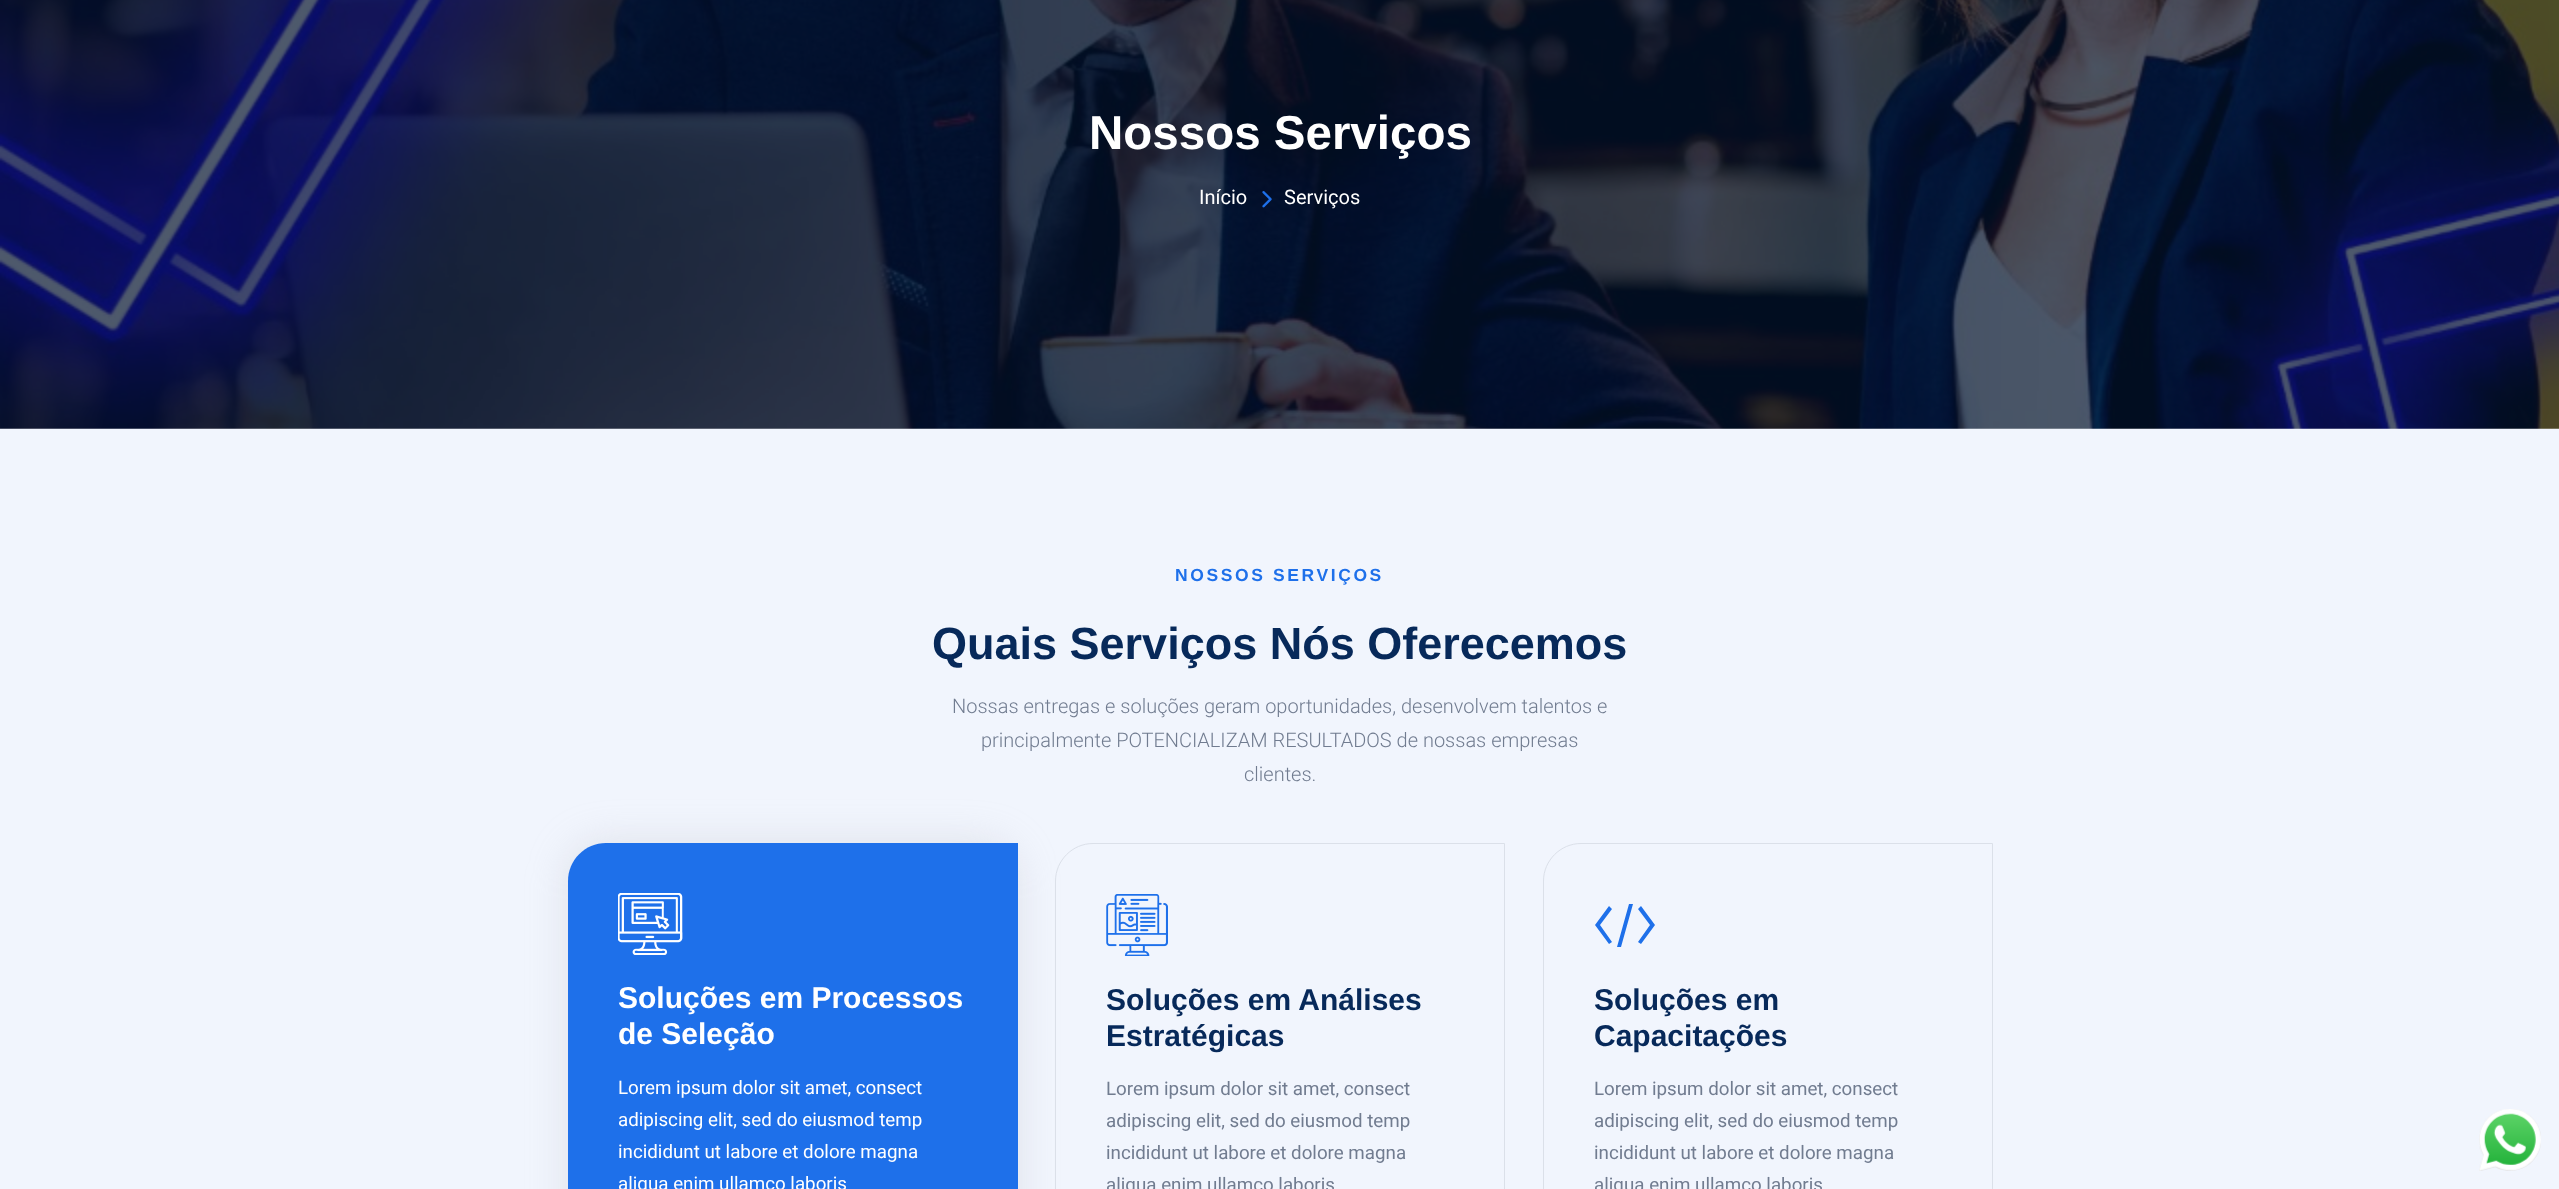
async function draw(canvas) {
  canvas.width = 2559
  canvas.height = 1189
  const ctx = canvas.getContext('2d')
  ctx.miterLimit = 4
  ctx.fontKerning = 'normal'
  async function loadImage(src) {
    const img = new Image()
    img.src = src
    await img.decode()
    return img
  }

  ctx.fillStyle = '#fff'
  ctx.fillRect(0, 0, 2559, 1189)
  ctx.drawImage(await loadImage('image0.png'), 0, 0, 2559, 429)
  ctx.font = 'bold 47.5px Liberation Sans'
  ctx.fillText('Nossos Serviços', 1089, 149)
  ctx.font = '20px Heebo'
  ctx.fillText('Início', 1199, 204)
  ctx.drawImage(await loadImage('image1.png'), 1262, 191, 10, 17)
  ctx.fillText('Serviços', 1284, 204)
  ctx.fillStyle = '#f1f5fd'
  ctx.fillRect(0, 429, 2559, 760)
  ctx.letterSpacing = '2.6px'
  ctx.font = 'bold 17.5px Liberation Sans'
  ctx.fillStyle = '#1e70ea'
  ctx.fillText('NOSSOS SERVIÇOS', 1175, 581)
  ctx.letterSpacing = '0px'
  ctx.font = 'bold 45px Liberation Sans'
  ctx.fillStyle = '#07295a'
  ctx.fillText('Quais Serviços Nós Oferecemos', 932, 659)
  ctx.font = '300 20px Heebo'
  ctx.fillStyle = '#717c90'
  ctx.fillText('Nossas entregas e soluções geram oportunidades, desenvolvem talentos e', 952, 713)
  ctx.fillText('principalmente POTENCIALIZAM RESULTADOS de nossas empresas', 981, 747)
  ctx.fillText('clientes.', 1244, 781)
  ctx.fillStyle = '#bab8bf4d'
  ctx.filter = 'blur(19px)'
  ctx.beginPath()
  ctx.roundRect(566, 841, 453, 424, 39)
  ctx.fill()
  ctx.filter = 'none'
  ctx.fillStyle = '#1e70ea'
  ctx.beginPath()
  ctx.moveTo(606, 843)
  ctx.lineTo(1018, 843)
  ctx.lineTo(1018, 1189)
  ctx.bezierCurveTo(1018, 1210, 1001, 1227, 980, 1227)
  ctx.lineTo(568, 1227)
  ctx.lineTo(568, 881)
  ctx.bezierCurveTo(568, 860, 585, 843, 606, 843)
  ctx.closePath()
  ctx.fill()
  ctx.drawImage(await loadImage('image2.png'), 618, 893, 65, 62)
  ctx.font = 'bold 30px Liberation Sans'
  ctx.fillStyle = '#fff'
  ctx.fillText('Soluções em Processos', 618, 1008)
  ctx.fillText('de Seleção', 618, 1044)
  ctx.font = '18.75px Roboto'
  ctx.fillText('Lorem ipsum dolor sit amet, consect', 618, 1094)
  ctx.fillText('adipiscing elit, sed do eiusmod temp', 618, 1126)
  ctx.fillText('incididunt ut labore et dolore magna', 618, 1158)
  ctx.fillText('aliqua enim ullamco laboris', 618, 1190)
  ctx.beginPath()
  ctx.moveTo(1093, 843.5)
  ctx.lineTo(1504.5, 843.5)
  ctx.lineTo(1504.5, 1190)
  ctx.bezierCurveTo(1504.5, 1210.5, 1487.5, 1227.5, 1467, 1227.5)
  ctx.lineTo(1055.5, 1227.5)
  ctx.lineTo(1055.5, 881)
  ctx.bezierCurveTo(1055.5, 860.5, 1072.5, 843.5, 1093, 843.5)
  ctx.closePath()
  ctx.strokeStyle = '#dbe0e9'
  ctx.stroke()
  ctx.drawImage(await loadImage('image3.png'), 1106, 894, 62, 62)
  ctx.font = 'bold 30px Liberation Sans'
  ctx.fillStyle = '#07295a'
  ctx.fillText('Soluções em Análises', 1106, 1010)
  ctx.fillText('Estratégicas', 1106, 1046)
  ctx.font = '18.75px Roboto'
  ctx.fillStyle = '#717c90'
  ctx.fillText('Lorem ipsum dolor sit amet, consect', 1106, 1095)
  ctx.fillText('adipiscing elit, sed do eiusmod temp', 1106, 1127)
  ctx.fillText('incididunt ut labore et dolore magna', 1106, 1159)
  ctx.fillText('aliqua enim ullamco laboris', 1106, 1191)
  ctx.beginPath()
  ctx.moveTo(1581, 843.5)
  ctx.lineTo(1992.5, 843.5)
  ctx.lineTo(1992.5, 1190)
  ctx.bezierCurveTo(1992.5, 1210.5, 1975.5, 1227.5, 1955, 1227.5)
  ctx.lineTo(1543.5, 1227.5)
  ctx.lineTo(1543.5, 881)
  ctx.bezierCurveTo(1543.5, 860.5, 1560.5, 843.5, 1581, 843.5)
  ctx.closePath()
  ctx.stroke()
  ctx.fillStyle = '#1e70ea'
  ctx.beginPath()
  ctx.moveTo(1629, 904)
  ctx.lineTo(1617, 947)
  ctx.lineTo(1621, 947)
  ctx.lineTo(1633, 904)
  ctx.closePath()
  ctx.moveTo(1609, 906)
  ctx.lineTo(1595, 925)
  ctx.lineTo(1609, 944)
  ctx.lineTo(1612, 942)
  ctx.lineTo(1600, 925)
  ctx.lineTo(1612, 909)
  ctx.closePath()
  ctx.moveTo(1641, 906)
  ctx.lineTo(1638, 909)
  ctx.lineTo(1650, 925)
  ctx.lineTo(1638, 942)
  ctx.lineTo(1641, 944)
  ctx.lineTo(1655, 925)
  ctx.closePath()
  ctx.fill()
  ctx.font = 'bold 30px Liberation Sans'
  ctx.fillStyle = '#07295a'
  ctx.fillText('Soluções em', 1594, 1010)
  ctx.fillText('Capacitações', 1594, 1046)
  ctx.font = '18.75px Roboto'
  ctx.fillStyle = '#717c90'
  ctx.fillText('Lorem ipsum dolor sit amet, consect', 1594, 1095)
  ctx.fillText('adipiscing elit, sed do eiusmod temp', 1594, 1127)
  ctx.fillText('incididunt ut labore et dolore magna', 1594, 1159)
  ctx.fillText('aliqua enim ullamco laboris', 1594, 1191)
  ctx.drawImage(await loadImage('image4.png'), 2479, 1109, 62, 62)
}

draw(document.querySelector('canvas'))
